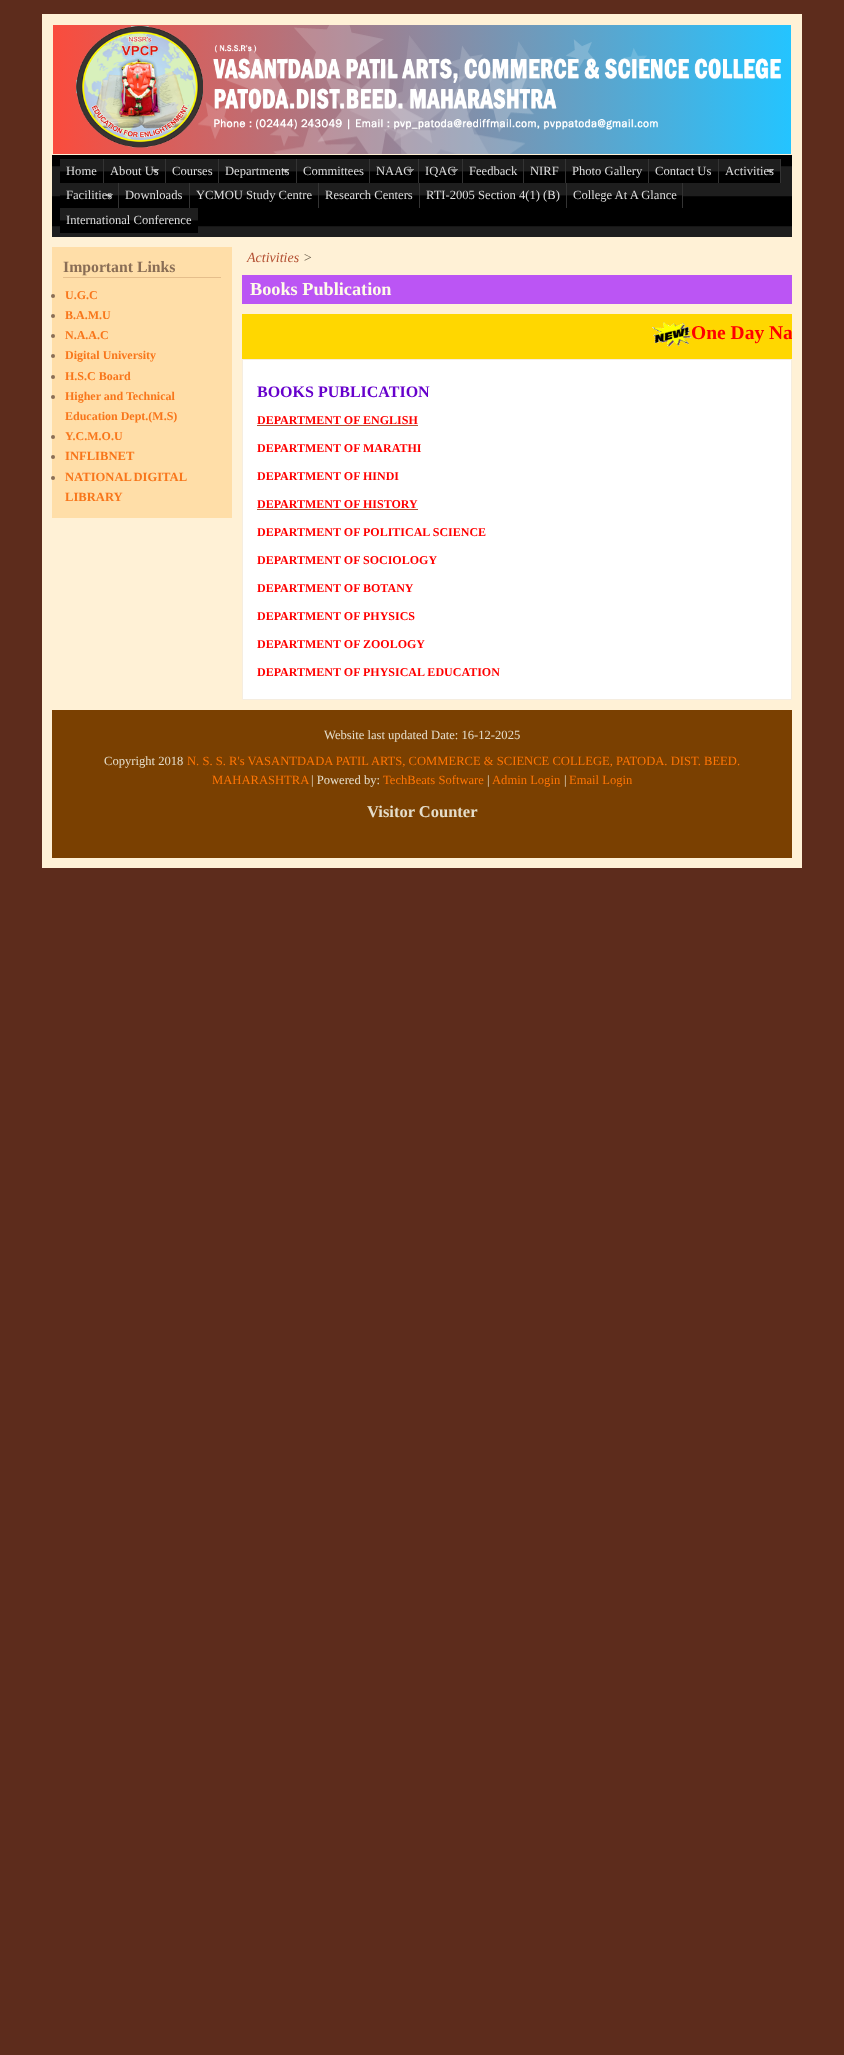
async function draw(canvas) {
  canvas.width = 844
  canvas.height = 2055
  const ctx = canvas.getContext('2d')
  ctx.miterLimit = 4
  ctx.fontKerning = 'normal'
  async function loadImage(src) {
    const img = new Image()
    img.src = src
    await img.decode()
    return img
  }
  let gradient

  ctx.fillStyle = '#5d2c1c'
  ctx.fillRect(0, 0, 844, 2055)
  ctx.fillStyle = '#fff1d6'
  ctx.fillRect(42, 14, 760, 854)
  gradient = ctx.createLinearGradient(53, 25, 791, 25)
  gradient.addColorStop(0, '#fa4c3d')
  gradient.addColorStop(1, '#24c4ff')
  ctx.fillStyle = gradient
  ctx.fillRect(53, 25, 738, 129)
  ctx.drawImage(await loadImage('image0.png'), 198, 25, 449, 129)
  ctx.drawImage(await loadImage('image1.png'), 76, 26, 705, 122)
  ctx.drawImage(await loadImage('image2.png'), 52, 155, 740, 82)
  ctx.drawImage(await loadImage('image3.png'), 60, 159, 43, 24)
  ctx.fillStyle = '#333'
  ctx.fillRect(103, 159, 1, 24)
  ctx.font = '12.6px Liberation Serif'
  ctx.fillStyle = '#ddd'
  ctx.fillText('Home', 66, 175)
  ctx.drawImage(await loadImage('image4.png'), 104, 159, 61, 24)
  ctx.drawImage(await loadImage('image5.png'), 151, 169, 8, 4)
  ctx.fillStyle = '#333'
  ctx.fillRect(165, 159, 1, 24)
  ctx.fillStyle = '#ddd'
  ctx.fillText('About Us', 110, 175)
  ctx.drawImage(await loadImage('image6.png'), 166, 159, 52, 24)
  ctx.fillStyle = '#333'
  ctx.fillRect(218, 159, 1, 24)
  ctx.fillStyle = '#ddd'
  ctx.fillText('Courses', 172, 175)
  ctx.drawImage(await loadImage('image7.png'), 219, 159, 77, 24)
  ctx.drawImage(await loadImage('image5.png'), 281, 169, 8, 4)
  ctx.fillStyle = '#333'
  ctx.fillRect(296, 159, 1, 24)
  ctx.fillStyle = '#ddd'
  ctx.fillText('Departments', 225, 175)
  ctx.drawImage(await loadImage('image8.png'), 297, 159, 72, 24)
  ctx.fillStyle = '#333'
  ctx.fillRect(369, 159, 1, 24)
  ctx.fillStyle = '#ddd'
  ctx.fillText('Committees', 303, 175)
  ctx.drawImage(await loadImage('image9.png'), 370, 159, 48, 24)
  ctx.drawImage(await loadImage('image5.png'), 406, 169, 8, 4)
  ctx.fillStyle = '#333'
  ctx.fillRect(418, 159, 1, 24)
  ctx.fillStyle = '#ddd'
  ctx.fillText('NAAC', 376, 175)
  ctx.drawImage(await loadImage('image3.png'), 419, 159, 43, 24)
  ctx.drawImage(await loadImage('image5.png'), 450, 169, 8, 4)
  ctx.fillStyle = '#333'
  ctx.fillRect(462, 159, 1, 24)
  ctx.fillStyle = '#ddd'
  ctx.fillText('IQAC', 425, 175)
  ctx.drawImage(await loadImage('image10.png'), 463, 159, 60, 24)
  ctx.fillStyle = '#333'
  ctx.fillRect(523, 159, 1, 24)
  ctx.fillStyle = '#ddd'
  ctx.fillText('Feedback', 469, 175)
  ctx.drawImage(await loadImage('image11.png'), 524, 159, 41, 24)
  ctx.fillStyle = '#333'
  ctx.fillRect(565, 159, 1, 24)
  ctx.fillStyle = '#ddd'
  ctx.fillText('NIRF', 530, 175)
  ctx.drawImage(await loadImage('image12.png'), 566, 159, 82, 24)
  ctx.fillStyle = '#333'
  ctx.fillRect(648, 159, 1, 24)
  ctx.fillStyle = '#ddd'
  ctx.fillText('Photo Gallery', 572, 175)
  ctx.drawImage(await loadImage('image13.png'), 649, 159, 69, 24)
  ctx.fillStyle = '#333'
  ctx.fillRect(718, 159, 1, 24)
  ctx.fillStyle = '#ddd'
  ctx.fillText('Contact Us', 655, 175)
  ctx.drawImage(await loadImage('image4.png'), 719, 159, 61, 24)
  ctx.drawImage(await loadImage('image5.png'), 766, 169, 8, 4)
  ctx.fillStyle = '#333'
  ctx.fillRect(780, 159, 1, 24)
  ctx.fillStyle = '#ddd'
  ctx.fillText('Activities', 725, 175)
  ctx.drawImage(await loadImage('image14.png'), 60, 195, 58, 2)
  ctx.drawImage(await loadImage('image15.png'), 105, 194, 8, 4)
  ctx.fillStyle = '#333'
  ctx.fillRect(118, 183, 1, 25)
  ctx.fillStyle = '#ddd'
  ctx.fillText('Facilities', 66, 199)
  ctx.drawImage(await loadImage('image16.png'), 119, 183, 70, 25)
  ctx.fillStyle = '#333'
  ctx.fillRect(189, 183, 1, 25)
  ctx.fillStyle = '#ddd'
  ctx.fillText('Downloads', 125, 199)
  ctx.drawImage(await loadImage('image17.png'), 190, 183, 128, 25)
  ctx.fillStyle = '#333'
  ctx.fillRect(318, 183, 1, 25)
  ctx.fillStyle = '#ddd'
  ctx.fillText('YCMOU Study Centre', 196, 199)
  ctx.drawImage(await loadImage('image18.png'), 319, 183, 100, 25)
  ctx.fillStyle = '#333'
  ctx.fillRect(419, 183, 1, 25)
  ctx.fillStyle = '#ddd'
  ctx.fillText('Research Centers', 325, 199)
  ctx.drawImage(await loadImage('image19.png'), 420, 183, 146, 25)
  ctx.fillStyle = '#333'
  ctx.fillRect(566, 183, 1, 25)
  ctx.fillStyle = '#ddd'
  ctx.fillText('RTI-2005 Section 4(1) (B)', 426, 199)
  ctx.drawImage(await loadImage('image20.png'), 567, 183, 115, 25)
  ctx.fillStyle = '#333'
  ctx.fillRect(682, 183, 1, 25)
  ctx.fillStyle = '#ddd'
  ctx.fillText('College At A Glance', 573, 199)
  ctx.drawImage(await loadImage('image21.png'), 60, 208, 138, 25)
  ctx.fillText('International Conference', 66, 224)
  ctx.fillStyle = '#ffdea8'
  ctx.fillRect(52, 247, 180, 271)
  ctx.fillStyle = '#e5be8b'
  ctx.fillRect(63, 277, 158, 1)
  ctx.font = 'bold 15.75px Liberation Serif'
  ctx.fillStyle = '#8a6e56'
  ctx.fillText('Important Links', 63, 272)
  ctx.beginPath()
  ctx.arc(53, 296, 2, 0, 2 * Math.PI)
  ctx.fill()
  ctx.font = 'bold 12px Liberation Serif'
  ctx.fillStyle = '#f8761b'
  ctx.fillText('U.G.C', 65, 299)
  ctx.fillStyle = '#8a6e56'
  ctx.beginPath()
  ctx.arc(53, 316, 2, 0, 2 * Math.PI)
  ctx.fill()
  ctx.fillStyle = '#f8761b'
  ctx.fillText('B.A.M.U', 65, 319)
  ctx.fillStyle = '#8a6e56'
  ctx.beginPath()
  ctx.arc(53, 336, 2, 0, 2 * Math.PI)
  ctx.fill()
  ctx.fillStyle = '#f8761b'
  ctx.fillText('N.A.A.C', 65, 339)
  ctx.fillStyle = '#8a6e56'
  ctx.beginPath()
  ctx.arc(53, 356, 2, 0, 2 * Math.PI)
  ctx.fill()
  ctx.fillStyle = '#f8761b'
  ctx.fillText('Digital University', 65, 359)
  ctx.fillStyle = '#8a6e56'
  ctx.beginPath()
  ctx.arc(53, 377, 2, 0, 2 * Math.PI)
  ctx.fill()
  ctx.fillStyle = '#f8761b'
  ctx.fillText('H.S.C Board', 65, 380)
  ctx.fillStyle = '#8a6e56'
  ctx.beginPath()
  ctx.arc(53, 397, 2, 0, 2 * Math.PI)
  ctx.fill()
  ctx.fillStyle = '#f8761b'
  ctx.fillText('Higher and Technical', 65, 400)
  ctx.fillText('Education Dept.(M.S)', 65, 420)
  ctx.fillStyle = '#8a6e56'
  ctx.beginPath()
  ctx.arc(53, 437, 2, 0, 2 * Math.PI)
  ctx.fill()
  ctx.fillStyle = '#f8761b'
  ctx.fillText('Y.C.M.O.U', 65, 440)
  ctx.fillStyle = '#8a6e56'
  ctx.beginPath()
  ctx.arc(53, 457, 2, 0, 2 * Math.PI)
  ctx.fill()
  ctx.font = 'bold 12.6px Liberation Serif'
  ctx.fillStyle = '#f8761b'
  ctx.fillText('INFLIBNET', 65, 460)
  ctx.fillStyle = '#8a6e56'
  ctx.beginPath()
  ctx.arc(53, 478, 2, 0, 2 * Math.PI)
  ctx.fill()
  ctx.wordSpacing = '-1px'
  ctx.fillStyle = '#f8761b'
  ctx.fillText('NATIONAL DIGITAL', 65, 481)
  ctx.wordSpacing = '0px'
  ctx.fillText('LIBRARY', 65, 501)
  ctx.font = 'italic 14px Liberation Serif'
  ctx.fillStyle = '#b34f32'
  ctx.fillText('Activities', 247, 262)
  ctx.fillStyle = '#685c4a'
  ctx.fillText('>', 303, 262)
  ctx.fillStyle = '#bb55f4'
  ctx.fillRect(242, 275, 550, 29)
  ctx.font = 'bold 18.25px Liberation Serif'
  ctx.fillStyle = '#fffde8'
  ctx.fillText('Books Publication', 250, 295)
  ctx.fillStyle = '#ffd700'
  ctx.fillRect(242, 314, 550, 45)
  ctx.drawImage(await loadImage('image22.png'), 652, 322, 40, 25)
  ctx.save()
  ctx.beginPath()
  ctx.rect(242, 322, 550, 30)
  ctx.clip()
  ctx.font = 'bold 19.5px Liberation Serif'
  ctx.fillStyle = '#f00'
  ctx.fillText('One Day Na', 691, 339)
  ctx.restore()
  ctx.fillStyle = '#fff'
  ctx.beginPath()
  ctx.rect(242.5, 359.5, 549, 340)
  ctx.fill()
  ctx.strokeStyle = '#f5ede0'
  ctx.stroke()
  ctx.font = 'bold 16px Liberation Serif'
  ctx.fillStyle = '#60c'
  ctx.fillText('BOOKS PUBLICATION', 257, 397)
  ctx.font = 'bold 12px Liberation Serif'
  ctx.fillStyle = '#f00'
  ctx.fillText('DEPARTMENT OF ENGLISH', 257, 424)
  ctx.fillStyle = '#b34f32'
  ctx.fillRect(257, 425, 161, 1)
  ctx.fillStyle = '#f00'
  ctx.fillText('DEPARTMENT OF MARATHI', 257, 452)
  ctx.fillText('DEPARTMENT OF HINDI', 257, 480)
  ctx.fillText('DEPARTMENT OF HISTORY', 257, 508)
  ctx.fillStyle = '#b34f32'
  ctx.fillRect(257, 509, 161, 1)
  ctx.fillStyle = '#f00'
  ctx.fillText('DEPARTMENT OF POLITICAL SCIENCE', 257, 536)
  ctx.fillText('DEPARTMENT OF SOCIOLOGY', 257, 564)
  ctx.fillText('DEPARTMENT OF BOTANY', 257, 592)
  ctx.fillText('DEPARTMENT OF PHYSICS', 257, 620)
  ctx.fillText('DEPARTMENT OF ZOOLOGY', 257, 648)
  ctx.fillText('DEPARTMENT OF PHYSICAL EDUCATION', 257, 676)
  ctx.fillStyle = '#7a4001'
  ctx.fillRect(52, 710, 740, 148)
  ctx.font = '12.6px Liberation Serif'
  ctx.fillStyle = '#e5ddca'
  ctx.fillText('Website last updated Date: 16-12-2025', 324, 739)
  ctx.fillText('Copyright 2018', 104, 765)
  ctx.fillStyle = '#ff7505'
  ctx.fillText('N. S. S. R\'s VASANTDADA PATIL ARTS, COMMERCE & SCIENCE COLLEGE, PATODA. DIST. BEED.', 187, 765)
  ctx.fillText('MAHARASHTRA', 212, 784)
  ctx.fillStyle = '#e5ddca'
  ctx.fillText('| Powered by:', 311, 784)
  ctx.fillStyle = '#ff7505'
  ctx.fillText('TechBeats Software', 383, 784)
  ctx.fillStyle = '#e5ddca'
  ctx.fillText('|', 487, 784)
  ctx.fillStyle = '#ff7505'
  ctx.fillText('Admin Login', 492, 784)
  ctx.fillStyle = '#e5ddca'
  ctx.fillText('|', 564, 784)
  ctx.fillStyle = '#ff7505'
  ctx.fillText('Email Login', 569, 784)
  ctx.font = 'bold 16.5px Liberation Serif'
  ctx.fillStyle = '#e5ddca'
  ctx.fillText('Visitor Counter', 367, 817)
}

draw(document.querySelector('canvas'))
